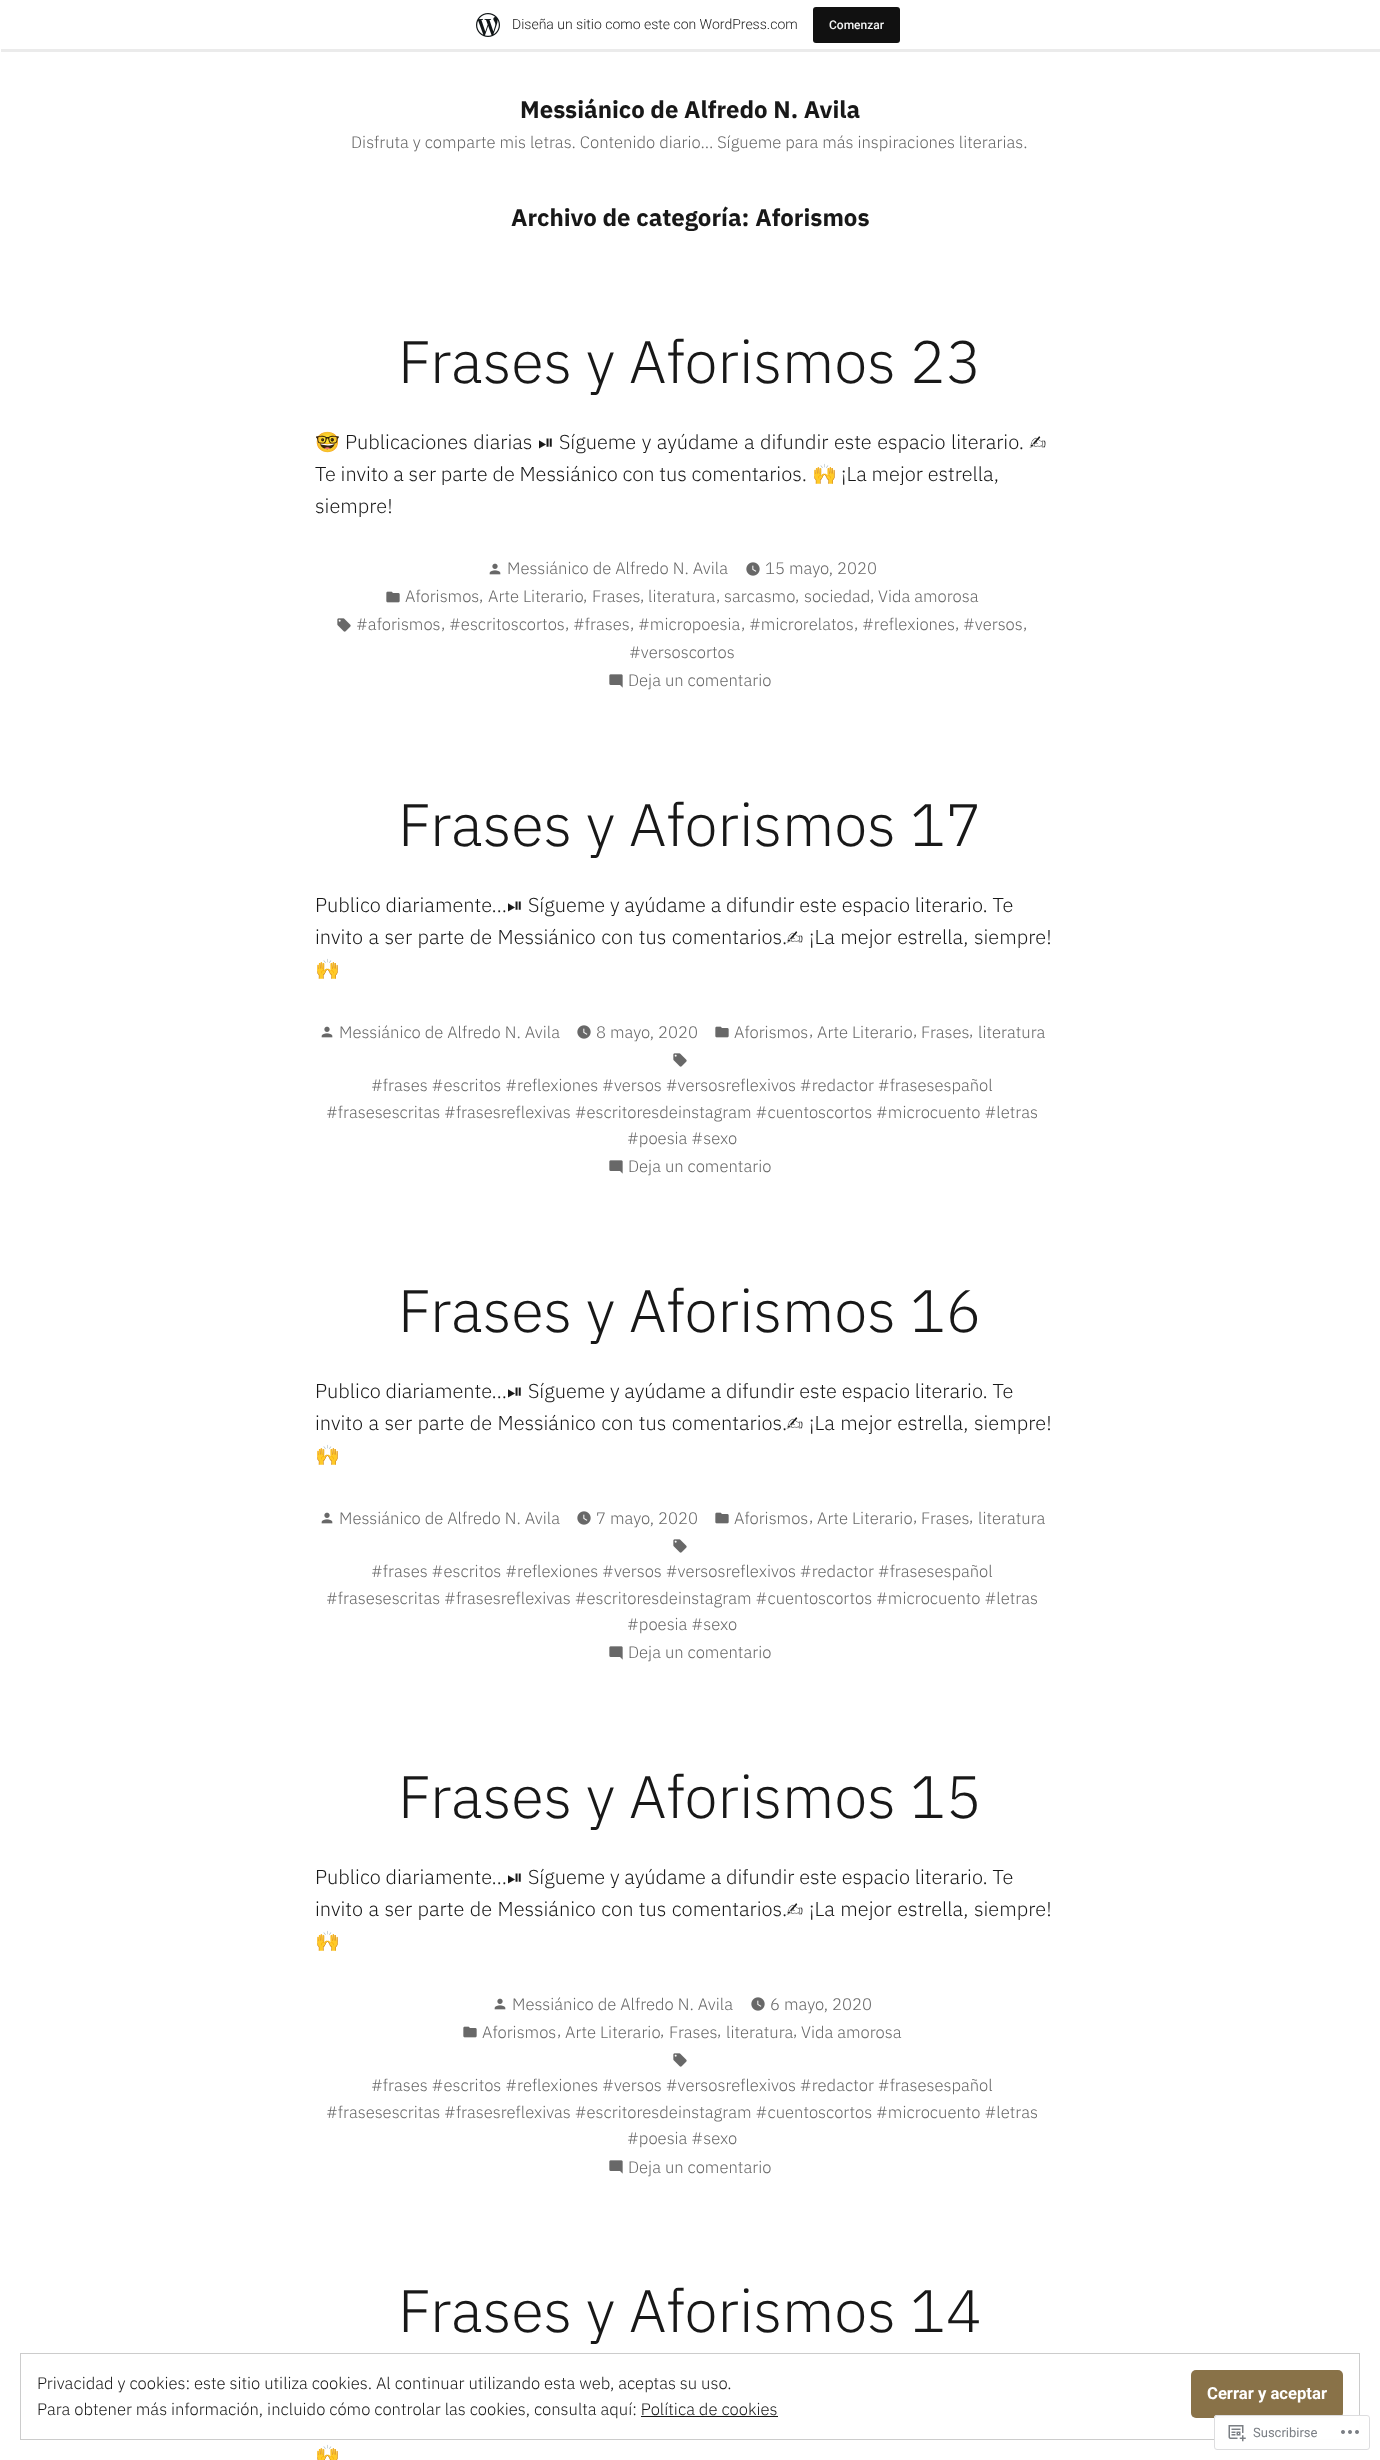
async function draw(canvas) {
  canvas.width = 1380
  canvas.height = 2460
  const ctx = canvas.getContext('2d')
  ctx.miterLimit = 4
  ctx.fontKerning = 'normal'
  async function loadImage(src) {
    const img = new Image()
    img.src = src
    await img.decode()
    return img
  }

  ctx.fillStyle = '#fff'
  ctx.fillRect(0, 0, 1380, 2460)
  ctx.fillStyle = '#00000014'
  ctx.beginPath()
  ctx.moveTo(1, 49)
  ctx.lineTo(1, 52)
  ctx.lineTo(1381, 52)
  ctx.lineTo(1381, 3)
  ctx.lineTo(1380, 3)
  ctx.lineTo(1380, 49)
  ctx.closePath()
  ctx.fill()
  ctx.drawImage(await loadImage('image0.png'), 476, 13, 24, 24)
  ctx.font = '300 14px Roboto'
  ctx.fillStyle = '#181818'
  ctx.fillText('Diseña un sitio como este con WordPress.com', 512, 29)
  ctx.fillStyle = '#111'
  ctx.beginPath()
  ctx.roundRect(813, 7, 87, 36, 3)
  ctx.fill()
  ctx.font = '500 12px Roboto'
  ctx.fillStyle = '#f6f7f7'
  ctx.fillText('Comenzar', 829, 29)
  ctx.font = 'bold 24px IBM Plex Sans'
  ctx.fillStyle = '#181818'
  ctx.fillText('Messiánico de Alfredo N. Avila', 520, 118)
  ctx.font = '300 16.65px IBM Plex Sans'
  ctx.fillStyle = '#686868'
  ctx.fillText('Disfruta y comparte mis letras. Contenido diario… Sígueme para más inspiraciones literarias.', 351, 148)
  ctx.font = 'bold 24px IBM Plex Sans'
  ctx.fillStyle = '#181818'
  ctx.fillText('Archivo de categoría: Aforismos', 511, 226)
  ctx.font = '300 59.75px IBM Plex Sans'
  ctx.fillText('Frases y Aforismos 23', 398, 383)
  ctx.font = '20px Noto Color Emoji'
  ctx.fillText('🤓', 315, 449)
  ctx.wordSpacing = '0.75px'
  ctx.font = '300 20px IBM Plex Sans'
  ctx.fillText('Publicaciones diarias', 345, 449)
  ctx.wordSpacing = '0px'
  ctx.font = '20px FreeSans'
  ctx.fillText('⏯', 538, 449)
  ctx.wordSpacing = '0.75px'
  ctx.font = '300 20px IBM Plex Sans'
  ctx.fillText('Sígueme y ayúdame a difundir este espacio literario.', 559, 449)
  ctx.wordSpacing = '0px'
  ctx.font = '20px FreeSans'
  ctx.fillText('✍', 1029, 449)
  ctx.font = '300 20px IBM Plex Sans'
  ctx.fillText('Te invito a ser parte de Messiánico con tus comentarios.', 315, 481)
  ctx.font = '20px Noto Color Emoji'
  ctx.fillText('🙌', 812, 481)
  ctx.font = '300 20px IBM Plex Sans'
  ctx.fillText('¡La mejor estrella,', 841, 481)
  ctx.fillText('siempre!', 315, 513)
  ctx.drawImage(await loadImage('image1.png'), 489, 563, 12, 12)
  ctx.font = '300 16.65px IBM Plex Sans'
  ctx.fillStyle = '#686868'
  ctx.fillText('Messiánico de Alfredo N. Avila', 507, 574)
  ctx.drawImage(await loadImage('image2.png'), 746, 562, 14, 14)
  ctx.fillText('15 mayo, 2020', 765, 574)
  ctx.drawImage(await loadImage('image3.png'), 386, 591, 14, 12)
  ctx.fillText('Aforismos', 405, 602)
  ctx.fillText(',', 479, 601)
  ctx.fillText('Arte Literario', 488, 602)
  ctx.fillText(',', 583, 601)
  ctx.fillText('Frases', 592, 602)
  ctx.fillText(',', 640, 601)
  ctx.fillText('literatura', 648, 602)
  ctx.fillText(',', 716, 601)
  ctx.fillText('sarcasmo', 724, 602)
  ctx.fillText(',', 795, 601)
  ctx.fillText('sociedad', 804, 602)
  ctx.fillText(',', 870, 601)
  ctx.fillText('Vida amorosa', 878, 602)
  ctx.drawImage(await loadImage('image4.png'), 337, 618, 14, 14)
  ctx.fillText('#aforismos', 356, 630)
  ctx.fillText(',', 441, 629)
  ctx.fillText('#escritoscortos', 449, 630)
  ctx.fillText(',', 565, 629)
  ctx.fillText('#frases', 573, 630)
  ctx.fillText(',', 630, 629)
  ctx.fillText('#micropoesia', 638, 630)
  ctx.fillText(',', 741, 629)
  ctx.fillText('#microrelatos', 749, 630)
  ctx.fillText(',', 854, 629)
  ctx.fillText('#reflexiones', 862, 630)
  ctx.fillText(',', 955, 629)
  ctx.fillText('#versos', 963, 630)
  ctx.fillText(',', 1023, 629)
  ctx.fillText('#versoscortos', 629, 658)
  ctx.drawImage(await loadImage('image5.png'), 609, 674, 14, 14)
  ctx.fillText('Deja un comentario', 628, 686)
  ctx.font = '300 59.75px IBM Plex Sans'
  ctx.fillStyle = '#181818'
  ctx.fillText('Frases y Aforismos 17', 398, 846)
  ctx.font = '300 20px IBM Plex Sans'
  ctx.fillText('Publico diariamente…', 315, 912)
  ctx.font = '20px FreeSans'
  ctx.fillText('⏯', 507, 912)
  ctx.font = '300 20px IBM Plex Sans'
  ctx.fillText('Sígueme y ayúdame a difundir este espacio literario. Te', 528, 912)
  ctx.wordSpacing = '0.75px'
  ctx.fillText('invito a ser parte de Messiánico con tus comentarios.', 315, 944)
  ctx.wordSpacing = '0px'
  ctx.font = '20px FreeSans'
  ctx.fillText('✍', 786, 944)
  ctx.wordSpacing = '0.75px'
  ctx.font = '300 20px IBM Plex Sans'
  ctx.fillText('¡La mejor estrella, siempre!', 809, 944)
  ctx.wordSpacing = '0px'
  ctx.font = '20px Noto Color Emoji'
  ctx.fillText('🙌', 315, 976)
  ctx.drawImage(await loadImage('image1.png'), 321, 1026, 12, 12)
  ctx.font = '300 16.65px IBM Plex Sans'
  ctx.fillStyle = '#686868'
  ctx.fillText('Messiánico de Alfredo N. Avila', 339, 1038)
  ctx.drawImage(await loadImage('image2.png'), 577, 1025, 14, 14)
  ctx.fillText('8 mayo, 2020', 596, 1038)
  ctx.drawImage(await loadImage('image3.png'), 715, 1026, 14, 12)
  ctx.fillText('Aforismos', 734, 1038)
  ctx.fillText(',', 809, 1036)
  ctx.fillText('Arte Literario', 817, 1038)
  ctx.fillText(',', 913, 1036)
  ctx.fillText('Frases', 921, 1038)
  ctx.fillText(',', 969, 1036)
  ctx.fillText('literatura', 978, 1038)
  ctx.drawImage(await loadImage('image4.png'), 673, 1053, 14, 14)
  ctx.fillText('#frases #escritos #reflexiones #versos #versosreflexivos #redactor #frasesespañol', 371, 1091)
  ctx.fillText('#frasesescritas #frasesreflexivas #escritoresdeinstagram #cuentoscortos #microcuento #letras', 326, 1118)
  ctx.fillText('#poesia #sexo', 627, 1144)
  ctx.drawImage(await loadImage('image5.png'), 609, 1160, 14, 14)
  ctx.fillText('Deja un comentario', 628, 1172)
  ctx.font = '300 59.75px IBM Plex Sans'
  ctx.fillStyle = '#181818'
  ctx.fillText('Frases y Aforismos 16', 398, 1332)
  ctx.font = '300 20px IBM Plex Sans'
  ctx.fillText('Publico diariamente…', 315, 1398)
  ctx.font = '20px FreeSans'
  ctx.fillText('⏯', 507, 1398)
  ctx.font = '300 20px IBM Plex Sans'
  ctx.fillText('Sígueme y ayúdame a difundir este espacio literario. Te', 528, 1398)
  ctx.wordSpacing = '0.75px'
  ctx.fillText('invito a ser parte de Messiánico con tus comentarios.', 315, 1430)
  ctx.wordSpacing = '0px'
  ctx.font = '20px FreeSans'
  ctx.fillText('✍', 786, 1430)
  ctx.wordSpacing = '0.75px'
  ctx.font = '300 20px IBM Plex Sans'
  ctx.fillText('¡La mejor estrella, siempre!', 809, 1430)
  ctx.wordSpacing = '0px'
  ctx.font = '20px Noto Color Emoji'
  ctx.fillText('🙌', 315, 1462)
  ctx.drawImage(await loadImage('image1.png'), 321, 1512, 12, 12)
  ctx.font = '300 16.65px IBM Plex Sans'
  ctx.fillStyle = '#686868'
  ctx.fillText('Messiánico de Alfredo N. Avila', 339, 1524)
  ctx.drawImage(await loadImage('image2.png'), 577, 1511, 14, 14)
  ctx.fillText('7 mayo, 2020', 596, 1524)
  ctx.drawImage(await loadImage('image3.png'), 715, 1512, 14, 12)
  ctx.fillText('Aforismos', 734, 1524)
  ctx.fillText(',', 809, 1522)
  ctx.fillText('Arte Literario', 817, 1524)
  ctx.fillText(',', 913, 1522)
  ctx.fillText('Frases', 921, 1524)
  ctx.fillText(',', 969, 1522)
  ctx.fillText('literatura', 978, 1524)
  ctx.drawImage(await loadImage('image4.png'), 673, 1539, 14, 14)
  ctx.fillText('#frases #escritos #reflexiones #versos #versosreflexivos #redactor #frasesespañol', 371, 1577)
  ctx.fillText('#frasesescritas #frasesreflexivas #escritoresdeinstagram #cuentoscortos #microcuento #letras', 326, 1604)
  ctx.fillText('#poesia #sexo', 627, 1630)
  ctx.drawImage(await loadImage('image5.png'), 609, 1646, 14, 14)
  ctx.fillText('Deja un comentario', 628, 1658)
  ctx.font = '300 59.75px IBM Plex Sans'
  ctx.fillStyle = '#181818'
  ctx.fillText('Frases y Aforismos 15', 398, 1818)
  ctx.font = '300 20px IBM Plex Sans'
  ctx.fillText('Publico diariamente…', 315, 1884)
  ctx.font = '20px FreeSans'
  ctx.fillText('⏯', 507, 1884)
  ctx.font = '300 20px IBM Plex Sans'
  ctx.fillText('Sígueme y ayúdame a difundir este espacio literario. Te', 528, 1884)
  ctx.wordSpacing = '0.75px'
  ctx.fillText('invito a ser parte de Messiánico con tus comentarios.', 315, 1916)
  ctx.wordSpacing = '0px'
  ctx.font = '20px FreeSans'
  ctx.fillText('✍', 786, 1916)
  ctx.wordSpacing = '0.75px'
  ctx.font = '300 20px IBM Plex Sans'
  ctx.fillText('¡La mejor estrella, siempre!', 809, 1916)
  ctx.wordSpacing = '0px'
  ctx.font = '20px Noto Color Emoji'
  ctx.fillText('🙌', 315, 1948)
  ctx.drawImage(await loadImage('image1.png'), 494, 1998, 12, 12)
  ctx.font = '300 16.65px IBM Plex Sans'
  ctx.fillStyle = '#686868'
  ctx.fillText('Messiánico de Alfredo N. Avila', 512, 2010)
  ctx.drawImage(await loadImage('image2.png'), 751, 1997, 14, 14)
  ctx.fillText('6 mayo, 2020', 770, 2010)
  ctx.drawImage(await loadImage('image3.png'), 463, 2026, 14, 12)
  ctx.fillText('Aforismos', 482, 2038)
  ctx.fillText(',', 557, 2036)
  ctx.fillText('Arte Literario', 565, 2038)
  ctx.fillText(',', 660, 2036)
  ctx.fillText('Frases', 669, 2038)
  ctx.fillText(',', 717, 2036)
  ctx.fillText('literatura', 726, 2038)
  ctx.fillText(',', 793, 2036)
  ctx.fillText('Vida amorosa', 801, 2038)
  ctx.drawImage(await loadImage('image4.png'), 673, 2053, 14, 14)
  ctx.fillText('#frases #escritos #reflexiones #versos #versosreflexivos #redactor #frasesespañol', 371, 2091)
  ctx.fillText('#frasesescritas #frasesreflexivas #escritoresdeinstagram #cuentoscortos #microcuento #letras', 326, 2118)
  ctx.fillText('#poesia #sexo', 627, 2144)
  ctx.drawImage(await loadImage('image5.png'), 609, 2160, 14, 14)
  ctx.fillText('Deja un comentario', 628, 2173)
  ctx.font = '300 59.75px IBM Plex Sans'
  ctx.fillStyle = '#181818'
  ctx.fillText('Frases y Aforismos 14', 398, 2332)
  ctx.font = '20px Noto Color Emoji'
  ctx.fillText('🙌', 315, 2462)
  ctx.strokeStyle = '#ccc'
  ctx.strokeRect(20.5, 2353.5, 1339, 86)
  ctx.font = '300 16.65px IBM Plex Sans'
  ctx.fillText('Privacidad y cookies: este sitio utiliza cookies. Al continuar utilizando esta web, aceptas su uso.', 37, 2389)
  ctx.fillStyle = '#897248'
  ctx.beginPath()
  ctx.roundRect(1191, 2370, 152, 48, 5)
  ctx.fill()
  ctx.font = 'bold 16.65px Roboto'
  ctx.fillStyle = '#fff'
  ctx.fillText('Cerrar y aceptar', 1207, 2399)
  ctx.font = '300 16.65px IBM Plex Sans'
  ctx.fillStyle = '#181818'
  ctx.fillText('Para obtener más información, incluido cómo controlar las cookies, consulta aquí: Política de cookies', 37, 2415)
  ctx.fillRect(641, 2416, 137, 1)
  ctx.fillStyle = '#fffffffa'
  ctx.beginPath()
  ctx.roundRect(1214, 2415, 156, 35, 3)
  ctx.fill()
  ctx.beginPath()
  ctx.roundRect(1214.5, 2415.5, 155, 34, 2.5)
  ctx.strokeStyle = '#dcdcdefa'
  ctx.stroke()
  ctx.drawImage(await loadImage('image6.png'), 1228, 2425, 18, 17)
  ctx.font = '13px Roboto'
  ctx.fillStyle = '#7b7f85'
  ctx.fillText('Suscribirse', 1253, 2437)
  ctx.drawImage(await loadImage('image7.png'), 1341, 2430, 18, 4)
}

draw(document.querySelector('canvas'))
